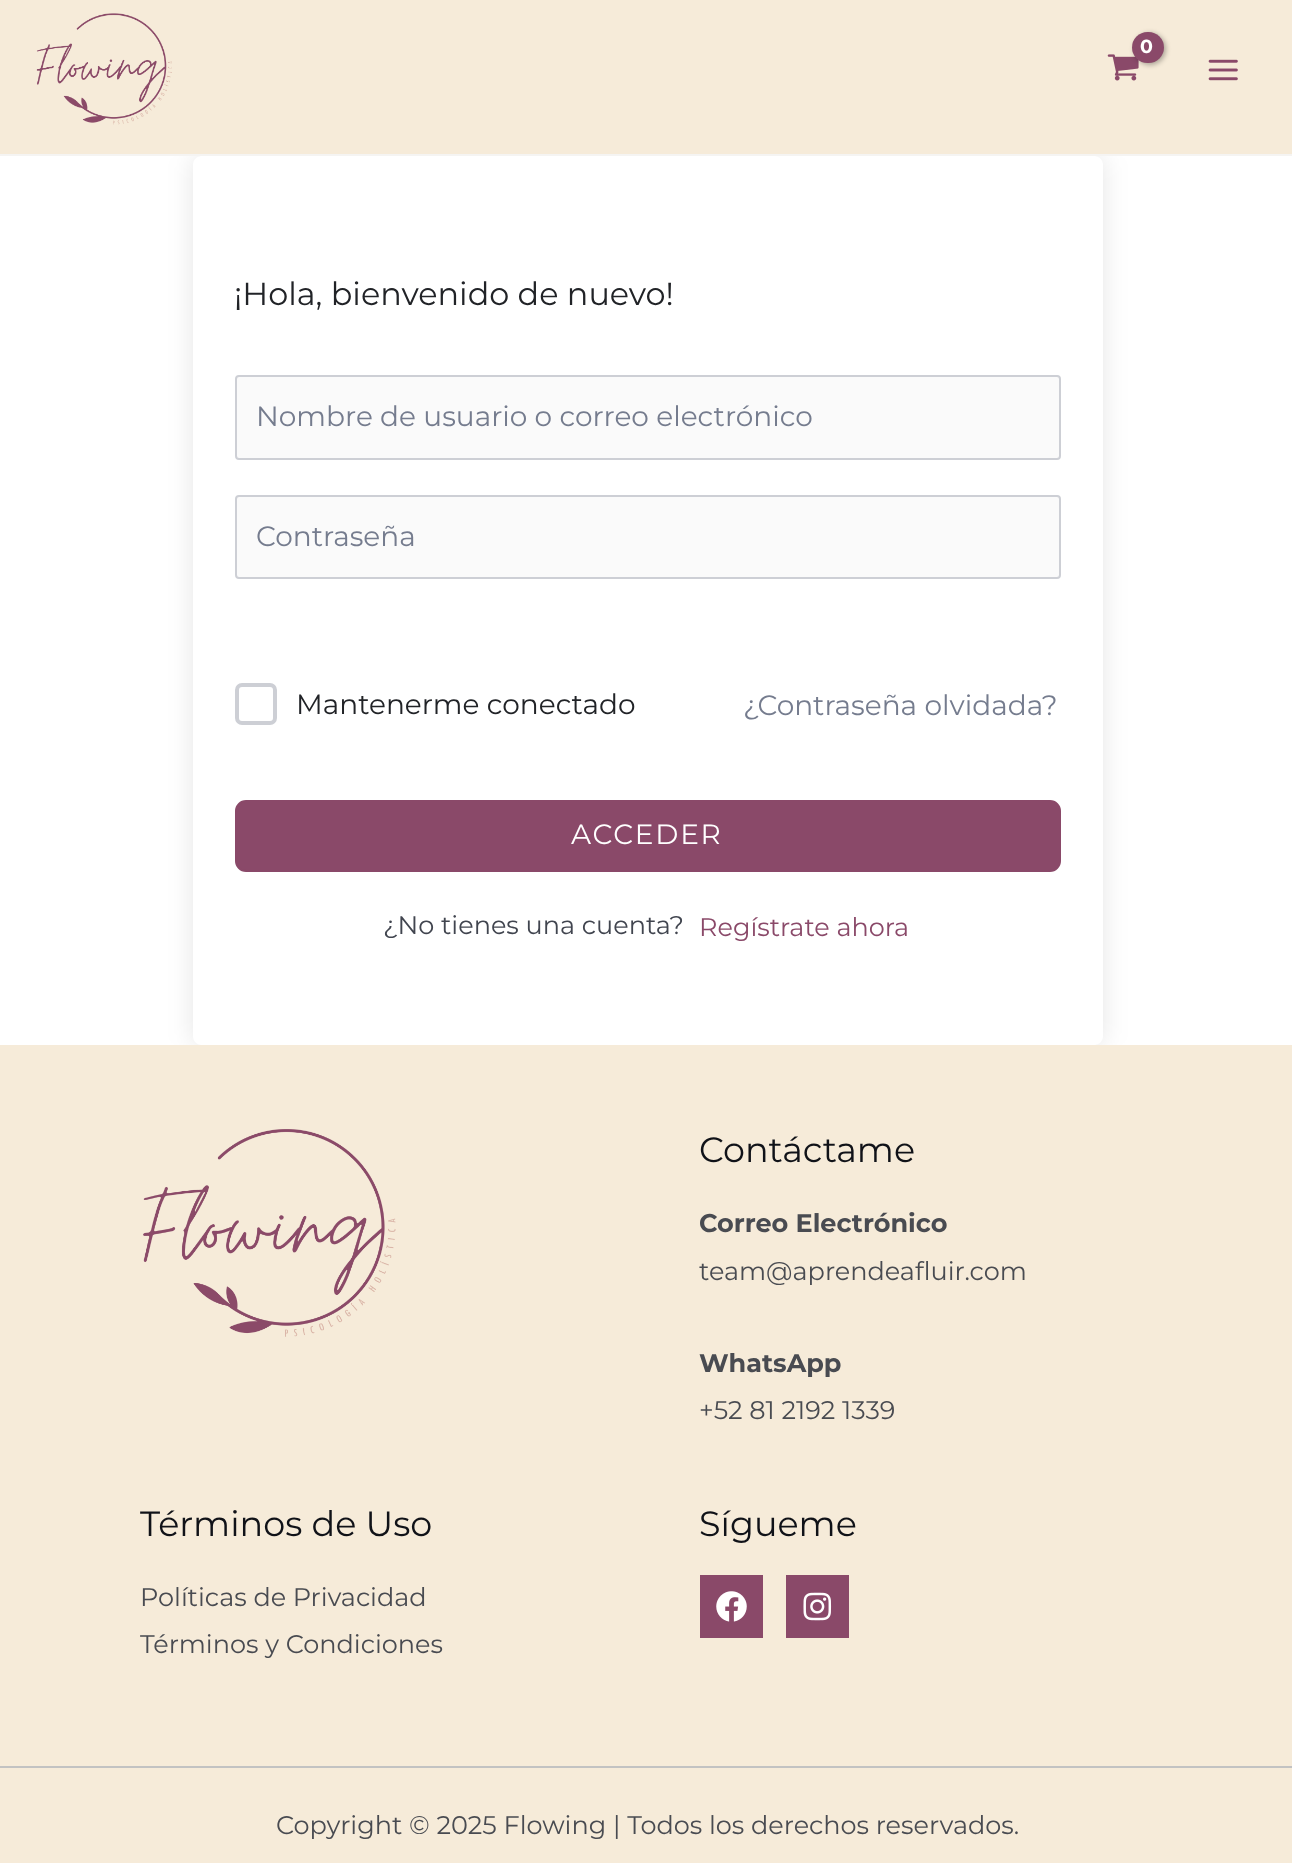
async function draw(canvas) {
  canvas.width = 1292
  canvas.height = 1863
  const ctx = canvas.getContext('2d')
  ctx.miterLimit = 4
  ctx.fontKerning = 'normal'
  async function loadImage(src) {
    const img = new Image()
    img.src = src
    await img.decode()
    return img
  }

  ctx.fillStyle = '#fff'
  ctx.fillRect(0, 0, 1292, 1863)
  ctx.save()
  ctx.beginPath()
  ctx.moveTo(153, 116)
  ctx.lineTo(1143, 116)
  ctx.lineTo(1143, 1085)
  ctx.lineTo(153, 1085)
  ctx.closePath()
  ctx.moveTo(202, 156)
  ctx.lineTo(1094, 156)
  ctx.bezierCurveTo(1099, 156, 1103, 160, 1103, 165)
  ctx.lineTo(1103, 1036)
  ctx.bezierCurveTo(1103, 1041, 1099, 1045, 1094, 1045)
  ctx.lineTo(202, 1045)
  ctx.bezierCurveTo(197, 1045, 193, 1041, 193, 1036)
  ctx.lineTo(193, 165)
  ctx.bezierCurveTo(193, 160, 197, 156, 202, 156)
  ctx.closePath()
  ctx.clip('evenodd')
  ctx.fillStyle = '#0000001a'
  ctx.filter = 'blur(13px)'
  ctx.beginPath()
  ctx.roundRect(193, 156, 910, 889, 9)
  ctx.fill()
  ctx.filter = 'none'
  ctx.restore()
  ctx.fillStyle = '#f6ebd9'
  ctx.fillRect(0, 0, 1292, 154)
  ctx.fillStyle = '#f5f4f2'
  ctx.fillRect(0, 154, 1292, 2)
  ctx.drawImage(await loadImage('image0.png'), 36, 13, 136, 112)
  ctx.drawImage(await loadImage('image1.png'), 1107, 54, 32, 27)
  ctx.fillStyle = '#0000004d'
  ctx.filter = 'blur(2.5px)'
  ctx.beginPath()
  ctx.roundRect(1134, 33, 32, 32, 16)
  ctx.fill()
  ctx.filter = 'none'
  ctx.fillStyle = '#8a4969'
  ctx.beginPath()
  ctx.roundRect(1132, 32, 32, 31, 15.5)
  ctx.fill()
  ctx.letterSpacing = '-1px'
  ctx.font = 'bold 19px Montserrat'
  ctx.fillStyle = '#fff'
  ctx.fillText('0', 1140, 53)
  ctx.drawImage(await loadImage('image2.png'), 1208, 59, 30, 22)
  ctx.letterSpacing = '0px'
  ctx.font = '31.9px Montserrat'
  ctx.fillStyle = '#212327'
  ctx.fillText('¡Hola, bienvenido de nuevo!', 234, 305)
  ctx.fillStyle = '#fafafa'
  ctx.beginPath()
  ctx.roundRect(236, 376, 824, 83, 3)
  ctx.fill()
  ctx.strokeStyle = '#cdcfd5'
  ctx.lineWidth = 2
  ctx.stroke()
  ctx.font = '28px Montserrat'
  ctx.fillStyle = '#757c8e'
  ctx.fillText('Nombre de usuario o correo electrónico', 256, 426)
  ctx.fillStyle = '#fafafa'
  ctx.beginPath()
  ctx.roundRect(236, 496, 824, 82, 3)
  ctx.fill()
  ctx.stroke()
  ctx.fillStyle = '#757c8e'
  ctx.fillText('Contraseña', 256, 546)
  ctx.beginPath()
  ctx.roundRect(237, 685, 38, 38, 5)
  ctx.lineWidth = 4
  ctx.stroke()
  ctx.fillStyle = '#212327'
  ctx.fillText('Mantenerme conectado', 296, 714)
  ctx.fillStyle = '#757c8e'
  ctx.fillText('¿Contraseña olvidada?', 743, 715)
  ctx.fillStyle = '#8a4969'
  ctx.beginPath()
  ctx.roundRect(236, 801, 824, 70, 10)
  ctx.fill()
  ctx.strokeStyle = '#8a4969'
  ctx.lineWidth = 2
  ctx.stroke()
  ctx.letterSpacing = '1.75px'
  ctx.fillStyle = '#fff'
  ctx.fillText('ACCEDER', 571, 844)
  ctx.letterSpacing = '0px'
  ctx.font = '25.55px Montserrat'
  ctx.fillStyle = '#41454f'
  ctx.fillText('¿No tienes una cuenta?', 383, 934)
  ctx.fillStyle = '#8a4969'
  ctx.fillText('Regístrate ahora', 699, 936)
  ctx.fillStyle = '#f6ebd9'
  ctx.fillRect(0, 1045, 1292, 721)
  ctx.drawImage(await loadImage('image3.png'), 143, 1129, 253, 208)
  ctx.font = '35px Montserrat'
  ctx.fillStyle = '#101218'
  ctx.fillText('Contáctame', 699, 1162)
  ctx.font = 'bold 25.55px Montserrat'
  ctx.fillStyle = '#494b51'
  ctx.fillText('Correo Electrónico', 699, 1232)
  ctx.font = '25.55px Montserrat'
  ctx.fillText('team@aprendeafluir.com', 699, 1280)
  ctx.font = 'bold 25.55px Montserrat'
  ctx.fillText('WhatsApp', 699, 1372)
  ctx.font = '25.55px Montserrat'
  ctx.fillText('+52 81 2192 1339', 699, 1419)
  ctx.font = '35px Montserrat'
  ctx.fillStyle = '#101218'
  ctx.fillText('Términos de Uso', 140, 1536)
  ctx.font = '25.55px Montserrat'
  ctx.fillStyle = '#494b51'
  ctx.fillText('Políticas de Privacidad', 140, 1606)
  ctx.fillText('Términos y Condiciones', 140, 1653)
  ctx.font = '35px Montserrat'
  ctx.fillStyle = '#101218'
  ctx.fillText('Sígueme', 699, 1536)
  ctx.fillStyle = '#8a4969'
  ctx.fillRect(700, 1575, 63, 63)
  ctx.drawImage(await loadImage('image4.png'), 716, 1591, 31, 31)
  ctx.fillRect(786, 1575, 63, 63)
  ctx.drawImage(await loadImage('image5.png'), 803, 1592, 29, 29)
  ctx.fillStyle = '#f6ebd9'
  ctx.fillRect(0, 1768, 1292, 95)
  ctx.fillStyle = '#c2c2c2'
  ctx.fillRect(0, 1766, 1292, 2)
  ctx.font = '25.55px Montserrat'
  ctx.fillStyle = '#494b51'
  ctx.fillText('Copyright © 2025 Flowing | Todos los derechos reservados.', 276, 1834)
}

draw(document.querySelector('canvas'))
